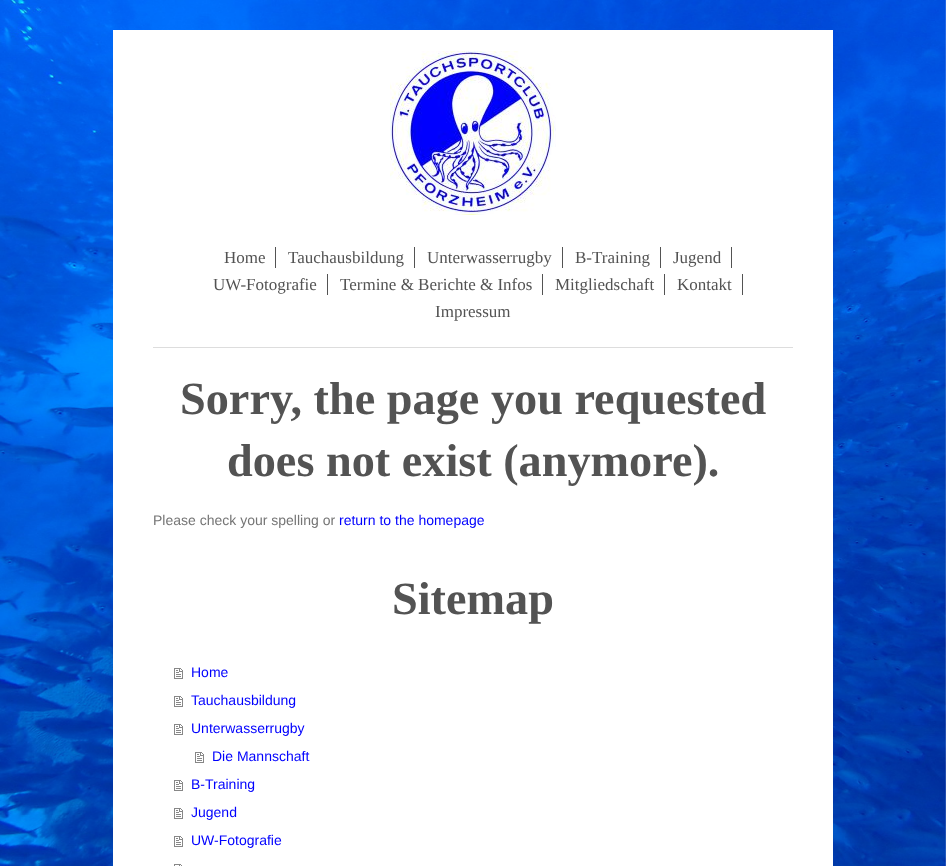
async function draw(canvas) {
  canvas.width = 946
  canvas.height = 866
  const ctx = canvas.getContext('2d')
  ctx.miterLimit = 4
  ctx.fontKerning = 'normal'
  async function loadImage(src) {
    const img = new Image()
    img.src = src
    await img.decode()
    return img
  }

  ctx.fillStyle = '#fff'
  ctx.fillRect(0, 0, 946, 866)
  ctx.drawImage(await loadImage('image0.png'), 0, 0, 946, 866)
  ctx.fillRect(113, 30, 720, 836)
  ctx.drawImage(await loadImage('image1.png'), 390, 51, 166, 164)
  ctx.fillStyle = '#ddd'
  ctx.fillRect(153, 347, 640, 1)
  ctx.fillStyle = '#535353'
  ctx.fillRect(275, 247, 1, 21)
  ctx.font = '17px Liberation Serif'
  ctx.fillText('Home', 224, 263)
  ctx.fillRect(414, 247, 1, 21)
  ctx.fillText('Tauchausbildung', 288, 263)
  ctx.fillRect(562, 247, 1, 21)
  ctx.fillText('Unterwasserrugby', 427, 263)
  ctx.fillRect(660, 247, 1, 21)
  ctx.fillText('B-Training', 575, 263)
  ctx.fillRect(731, 247, 1, 21)
  ctx.fillText('Jugend', 673, 263)
  ctx.fillRect(327, 274, 1, 21)
  ctx.fillText('UW-Fotografie', 213, 290)
  ctx.fillRect(542, 274, 1, 21)
  ctx.fillText('Termine & Berichte & Infos', 340, 290)
  ctx.fillRect(664, 274, 1, 21)
  ctx.fillText('Mitgliedschaft', 555, 290)
  ctx.fillRect(742, 274, 1, 21)
  ctx.fillText('Kontakt', 677, 290)
  ctx.fillText('Impressum', 435, 317)
  ctx.font = 'bold 46.25px Liberation Serif'
  ctx.fillText('Sorry, the page you requested', 180, 414)
  ctx.fillText('does not exist (anymore).', 227, 476)
  ctx.font = '14px Liberation Sans'
  ctx.fillStyle = '#757575'
  ctx.fillText('Please check your spelling or', 153, 525)
  ctx.fillStyle = '#0000fe'
  ctx.fillText('return to the homepage', 339, 525)
  ctx.font = 'bold 46.25px Liberation Serif'
  ctx.fillStyle = '#535353'
  ctx.fillText('Sitemap', 392, 614)
  ctx.drawImage(await loadImage('image2.png'), 174, 668, 9, 11)
  ctx.font = '14px Liberation Sans'
  ctx.fillStyle = '#0000fe'
  ctx.fillText('Home', 191, 677)
  ctx.drawImage(await loadImage('image2.png'), 174, 696, 9, 11)
  ctx.fillText('Tauchausbildung', 191, 705)
  ctx.drawImage(await loadImage('image2.png'), 174, 724, 9, 11)
  ctx.fillText('Unterwasserrugby', 191, 733)
  ctx.drawImage(await loadImage('image2.png'), 195, 752, 9, 11)
  ctx.fillText('Die Mannschaft', 212, 761)
  ctx.drawImage(await loadImage('image2.png'), 174, 780, 9, 11)
  ctx.fillText('B-Training', 191, 789)
  ctx.drawImage(await loadImage('image2.png'), 174, 808, 9, 11)
  ctx.fillText('Jugend', 191, 817)
  ctx.drawImage(await loadImage('image2.png'), 174, 836, 9, 11)
  ctx.fillText('UW-Fotografie', 191, 845)
  ctx.drawImage(await loadImage('image3.png'), 174, 864, 8, 2)
}

draw(document.querySelector('canvas'))
